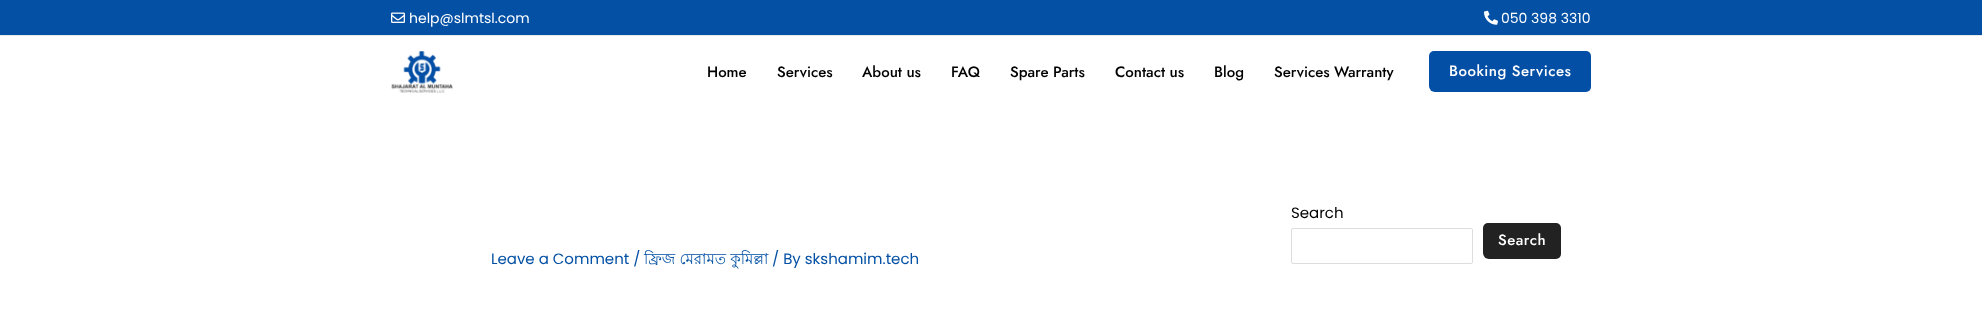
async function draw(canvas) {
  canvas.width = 1982
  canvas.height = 315
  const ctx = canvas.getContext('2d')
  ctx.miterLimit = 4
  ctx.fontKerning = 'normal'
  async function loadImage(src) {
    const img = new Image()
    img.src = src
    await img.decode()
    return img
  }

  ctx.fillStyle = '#fff'
  ctx.fillRect(0, 0, 1982, 315)
  ctx.fillStyle = '#0350a4'
  ctx.fillRect(0, 0, 1982, 35)
  ctx.fillStyle = '#eaeaea'
  ctx.fillRect(0, 35, 1982, 1)
  ctx.drawImage(await loadImage('image0.png'), 391, 12, 14, 11)
  ctx.font = '14px Poppins'
  ctx.fillStyle = '#fff'
  ctx.fillText('help@slmtsl.com', 409, 23)
  ctx.drawImage(await loadImage('image1.png'), 1484, 10, 14, 15)
  ctx.fillText('050 398 3310', 1501, 23)
  ctx.drawImage(await loadImage('image2.png'), 391, 51, 62, 42)
  ctx.font = '500 15px Jost'
  ctx.fillStyle = '#000'
  ctx.fillText('Home', 707, 77)
  ctx.fillText('Services', 777, 77)
  ctx.fillText('About us', 862, 77)
  ctx.fillText('FAQ', 951, 77)
  ctx.fillText('Spare Parts', 1010, 77)
  ctx.fillText('Contact us', 1115, 77)
  ctx.fillText('Blog', 1214, 77)
  ctx.fillText('Services Warranty', 1274, 77)
  ctx.fillStyle = '#034fa5'
  ctx.beginPath()
  ctx.roundRect(1429, 51, 162, 41, [5, 5, 5, 6])
  ctx.fill()
  ctx.letterSpacing = '0.5px'
  ctx.fillStyle = '#fff'
  ctx.fillText('Booking Services', 1449, 76)
  ctx.letterSpacing = '0px'
  ctx.font = '15px Poppins'
  ctx.fillStyle = '#000'
  ctx.fillText('Search', 1291, 218)
  ctx.beginPath()
  ctx.roundRect(1291.5, 228.5, 181, 35, 1.5)
  ctx.strokeStyle = '#ddd'
  ctx.stroke()
  ctx.fillStyle = '#222'
  ctx.beginPath()
  ctx.roundRect(1483, 223, 78, 36, [5, 5, 5, 6])
  ctx.fill()
  ctx.letterSpacing = '0.5px'
  ctx.font = '500 15px Jost'
  ctx.fillStyle = '#fff'
  ctx.fillText('Search', 1498, 245)
  ctx.letterSpacing = '0px'
  ctx.font = '15px Poppins'
  ctx.fillStyle = '#0350a4'
  ctx.fillText('Leave a Comment /', 491, 264)
  ctx.font = '15px Lohit Bengali'
  ctx.fillText('ফ্রিজ মেরামত কুমিল্লা', 644, 264)
  ctx.font = '15px Poppins'
  ctx.fillText('/ By skshamim.tech', 772, 264)
}

draw(document.querySelector('canvas'))
